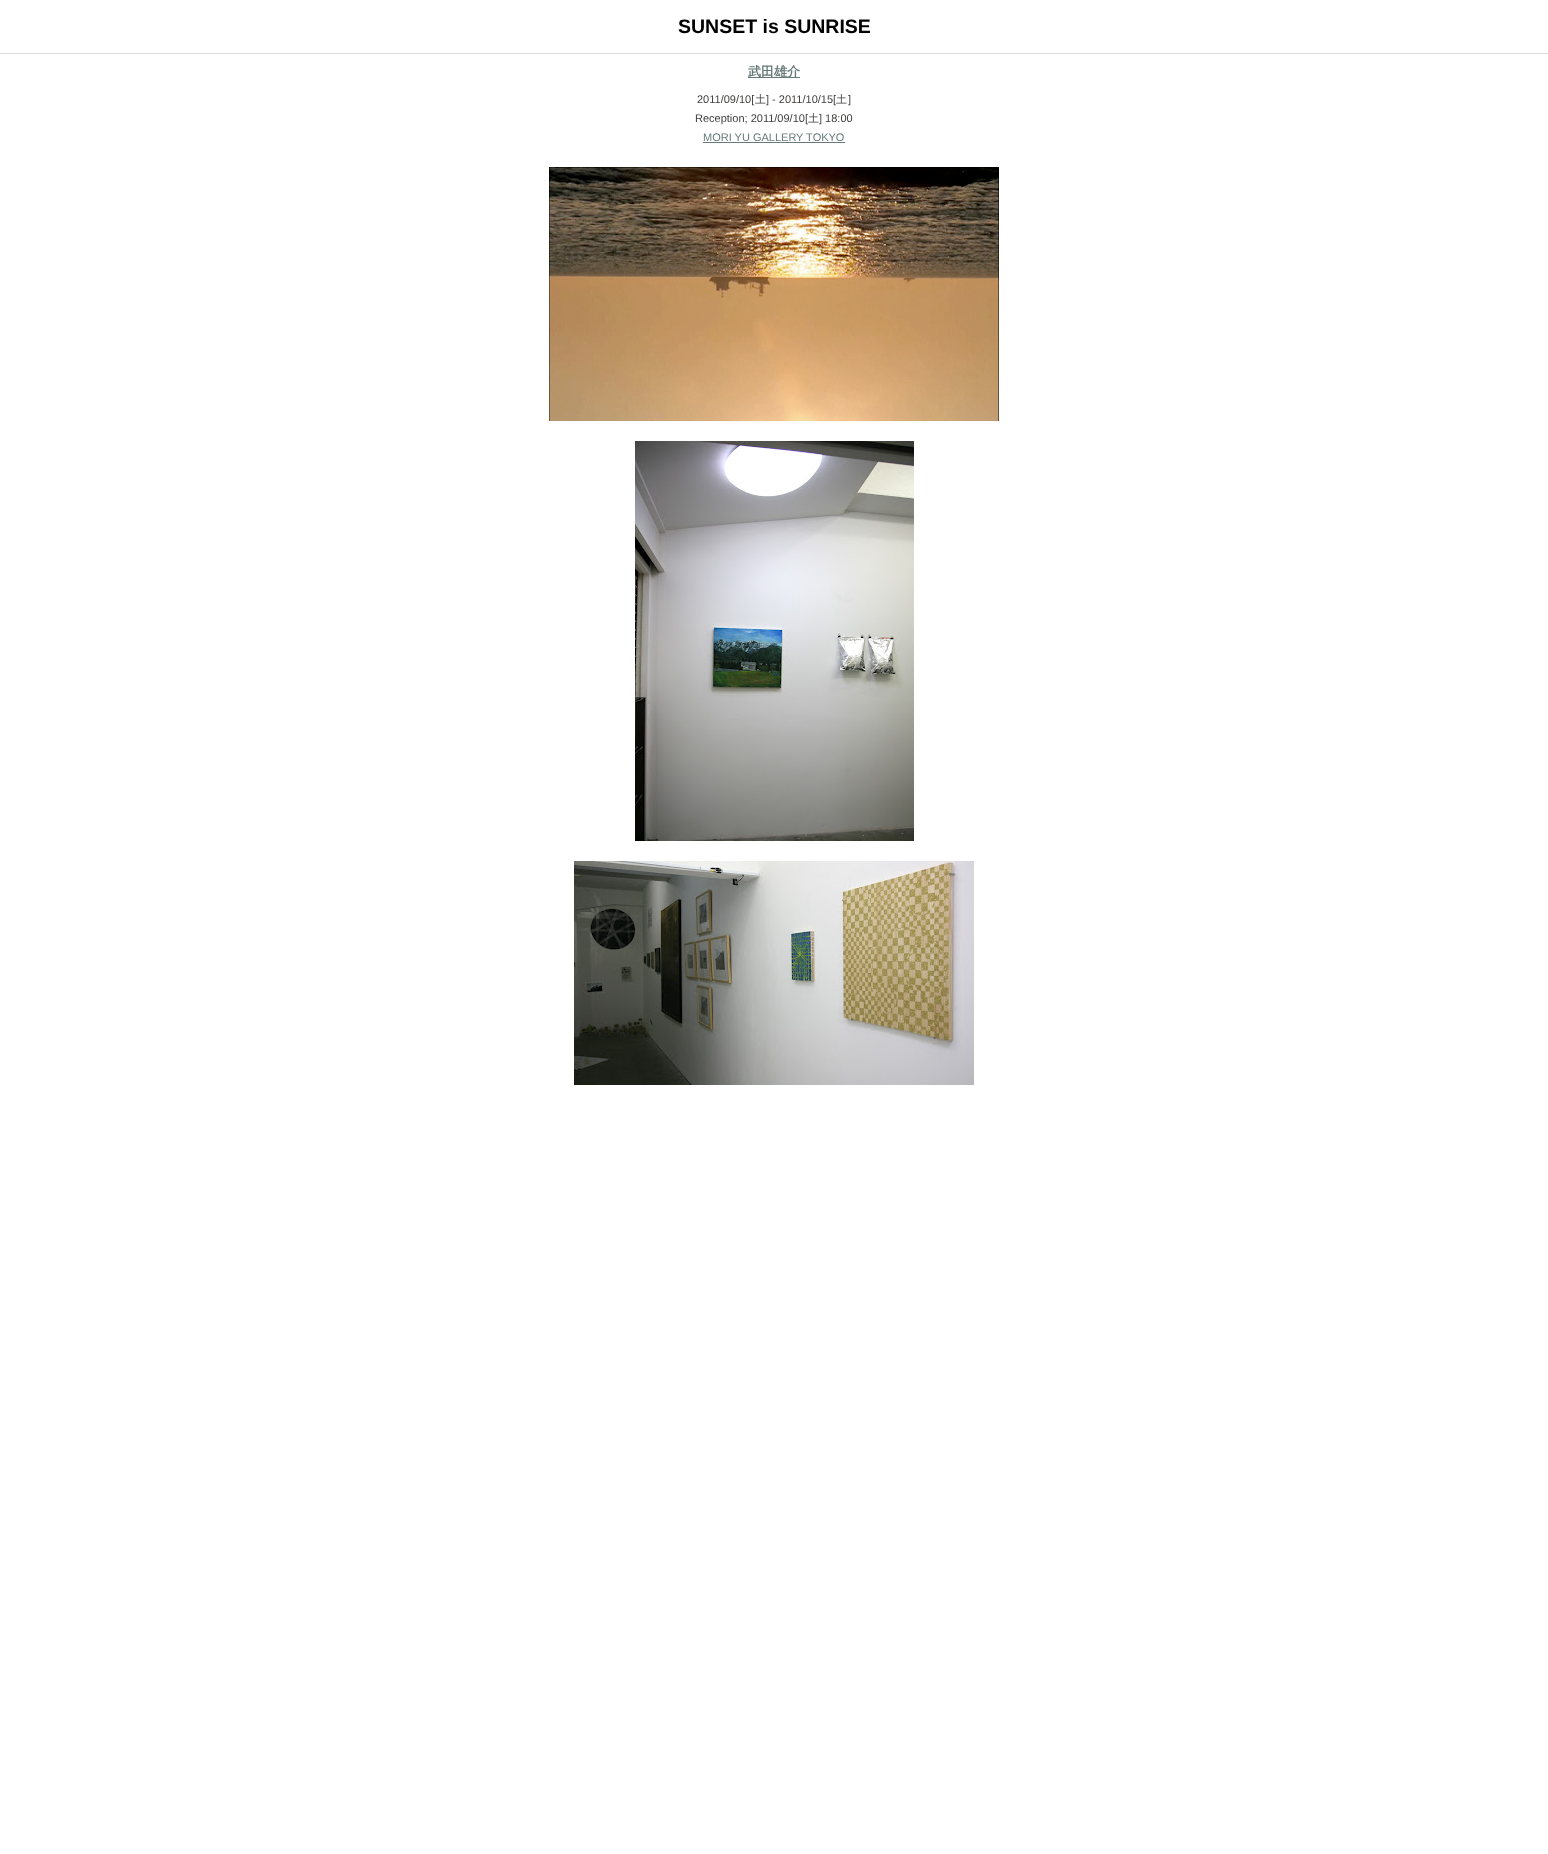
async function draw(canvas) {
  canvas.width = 1548
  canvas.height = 1854
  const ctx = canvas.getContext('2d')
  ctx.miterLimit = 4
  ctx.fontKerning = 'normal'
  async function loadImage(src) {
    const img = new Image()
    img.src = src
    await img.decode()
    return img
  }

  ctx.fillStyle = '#fff'
  ctx.fillRect(0, 0, 1548, 1854)
  ctx.fillStyle = '#ddd'
  ctx.fillRect(0, 53, 1548, 1)
  ctx.font = 'bold 19.5px Liberation Sans'
  ctx.fillStyle = '#000'
  ctx.fillText('SUNSET is SUNRISE', 678, 33)
  ctx.fillStyle = '#667978'
  ctx.fillRect(748, 77, 52, 1)
  ctx.font = 'bold 13px WenQuanYi Zen Hei'
  ctx.fillText('武田雄介', 748, 76)
  ctx.font = '11px Liberation Sans'
  ctx.fillStyle = '#403e3d'
  ctx.fillText('2011/09/10[', 697, 103)
  ctx.font = '500 11px WenQuanYi Zen Hei'
  ctx.fillText('土', 755, 103)
  ctx.font = '11px Liberation Sans'
  ctx.fillText('] - 2011/10/15[', 766, 103)
  ctx.font = '500 11px WenQuanYi Zen Hei'
  ctx.fillText('土', 836, 103)
  ctx.font = '11px Liberation Sans'
  ctx.fillText(']', 848, 103)
  ctx.fillText('Reception; 2011/09/10[', 695, 122)
  ctx.font = '500 11px WenQuanYi Zen Hei'
  ctx.fillText('土', 808, 122)
  ctx.font = '11px Liberation Sans'
  ctx.fillText('] 18:00', 819, 122)
  ctx.fillStyle = '#667978'
  ctx.fillText('MORI YU GALLERY TOKYO', 703, 141)
  ctx.fillRect(703, 142, 142, 1)
  ctx.drawImage(await loadImage('image0.png'), 549, 167, 450, 254)
  ctx.drawImage(await loadImage('image1.png'), 635, 441, 279, 400)
  ctx.drawImage(await loadImage('image2.png'), 574, 861, 400, 224)
}

draw(document.querySelector('canvas'))
